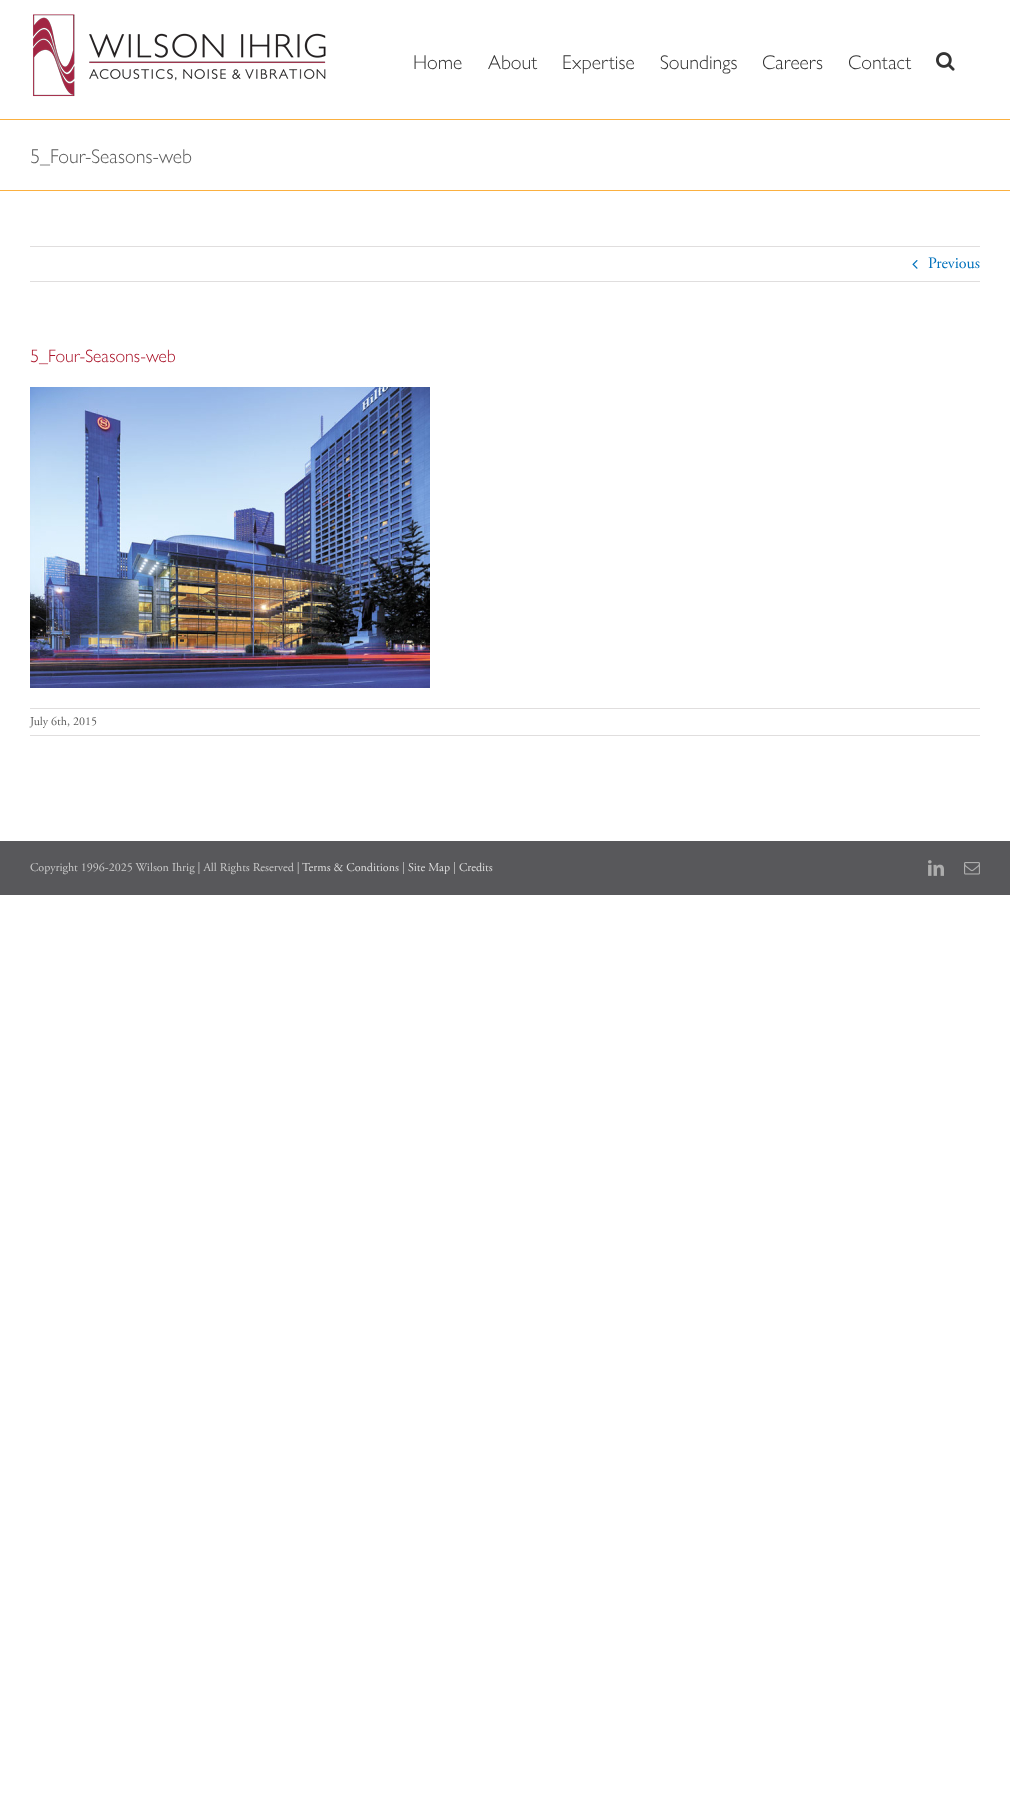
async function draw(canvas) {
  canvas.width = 1010
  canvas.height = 1820
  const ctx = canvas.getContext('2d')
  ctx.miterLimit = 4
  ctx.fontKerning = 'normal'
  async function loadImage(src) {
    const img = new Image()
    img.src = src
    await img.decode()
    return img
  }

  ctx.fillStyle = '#fff'
  ctx.fillRect(0, 0, 1010, 1820)
  ctx.drawImage(await loadImage('image0.png'), 32, 14, 294, 83)
  ctx.font = '300 20px "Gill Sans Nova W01"'
  ctx.fillStyle = '#333'
  ctx.fillText('Home', 413, 69)
  ctx.fillText('About', 488, 69)
  ctx.fillText('Expertise', 562, 69)
  ctx.fillText('Soundings', 660, 69)
  ctx.fillText('Careers', 762, 69)
  ctx.fillText('Contact', 848, 69)
  ctx.drawImage(await loadImage('image1.png'), 936, 52, 19, 19)
  ctx.fillStyle = '#fbb040'
  ctx.fillRect(0, 119, 1010, 1)
  ctx.fillRect(0, 190, 1010, 1)
  ctx.fillStyle = '#5b5b5b'
  ctx.fillText('5_Four-Seasons-web', 30, 163)
  ctx.fillStyle = '#e0dede'
  ctx.fillRect(30, 246, 950, 1)
  ctx.fillRect(30, 281, 950, 1)
  ctx.drawImage(await loadImage('image2.png'), 912, 260, 6, 9)
  ctx.font = '16px Adobe Garamond'
  ctx.fillStyle = '#0071bc'
  ctx.fillText('Previous', 928, 268)
  ctx.font = '300 18px "Gill Sans Nova W01"'
  ctx.fillStyle = '#ab162b'
  ctx.fillText('5_Four-Seasons-web', 30, 362)
  ctx.drawImage(await loadImage('image3.png'), 30, 387, 400, 301)
  ctx.fillStyle = '#e0dede'
  ctx.fillRect(30, 708, 950, 1)
  ctx.fillRect(30, 735, 950, 1)
  ctx.font = '12px Adobe Garamond'
  ctx.fillStyle = '#5b5b5b'
  ctx.fillText('July 6th, 2015', 30, 725)
  ctx.fillStyle = '#58585b'
  ctx.fillRect(0, 841, 1010, 54)
  ctx.fillStyle = '#c9c9c9'
  ctx.fillText('Copyright 1996-2025 Wilson Ihrig | All Rights Reserved |', 30, 871)
  ctx.fillStyle = '#ddd'
  ctx.fillText('Terms & Conditions', 302, 871)
  ctx.fillStyle = '#c9c9c9'
  ctx.fillText('|', 402, 871)
  ctx.fillStyle = '#ddd'
  ctx.fillText('Site Map', 408, 871)
  ctx.fillStyle = '#c9c9c9'
  ctx.fillText('|', 453, 871)
  ctx.fillStyle = '#ddd'
  ctx.fillText('Credits', 459, 871)
  ctx.drawImage(await loadImage('image4.png'), 928, 860, 16, 16)
  ctx.drawImage(await loadImage('image5.png'), 964, 862, 16, 13)
}

draw(document.querySelector('canvas'))
